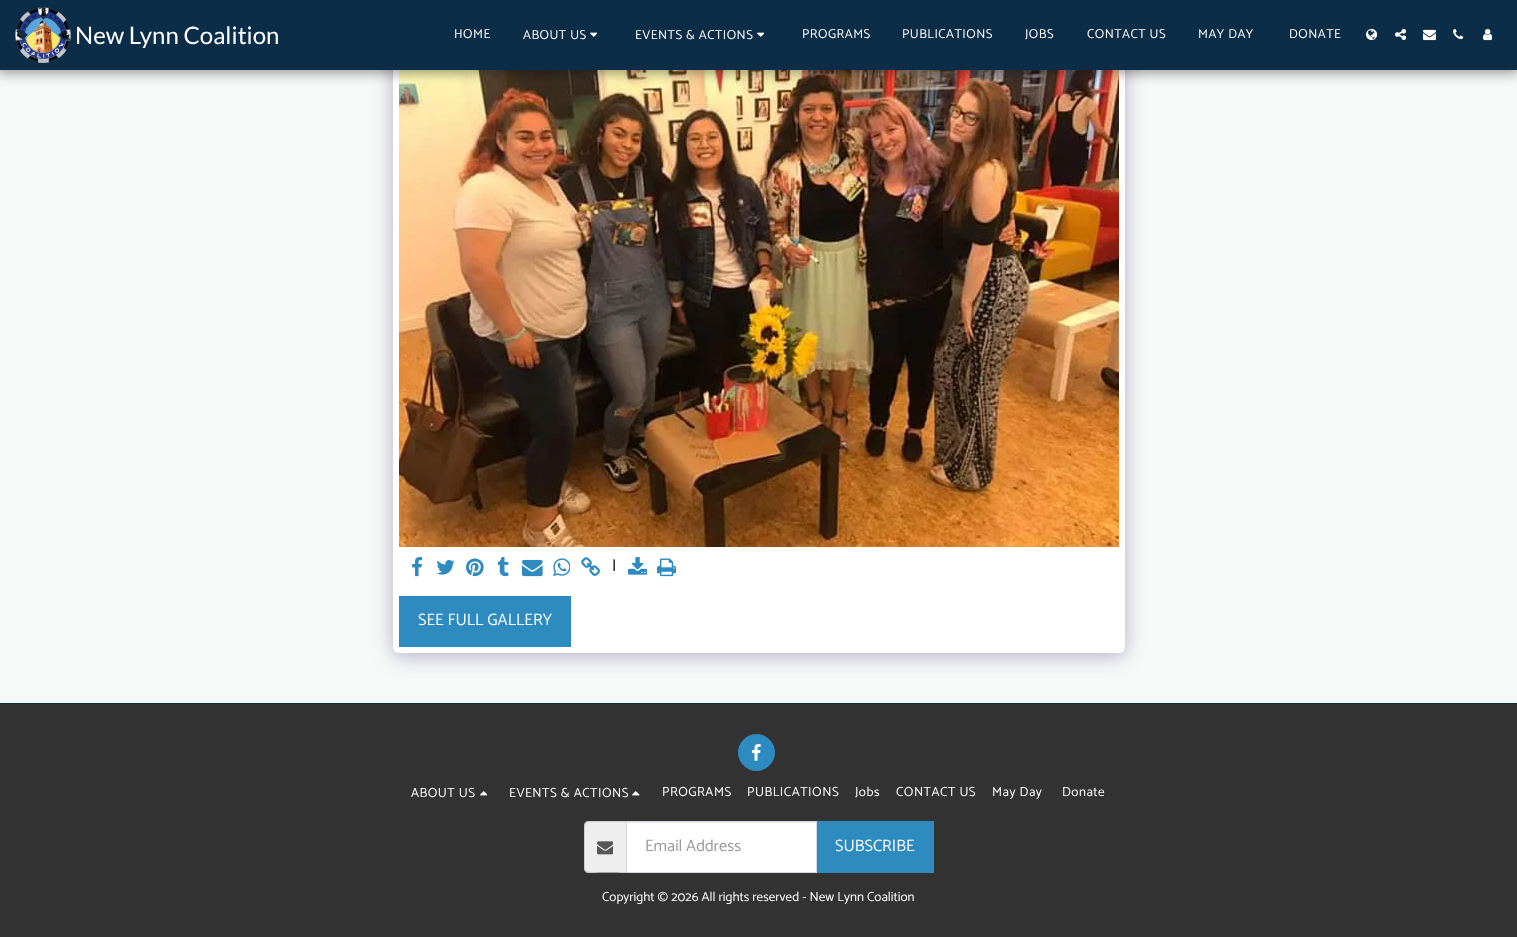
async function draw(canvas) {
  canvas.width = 1517
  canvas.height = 937
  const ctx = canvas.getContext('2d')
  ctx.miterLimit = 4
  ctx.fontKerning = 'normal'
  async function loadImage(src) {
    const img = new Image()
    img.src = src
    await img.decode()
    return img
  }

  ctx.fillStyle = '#f7f9f8'
  ctx.fillRect(0, 0, 1517, 937)
  ctx.fillStyle = '#4d3f7a66'
  ctx.filter = 'blur(10px)'
  ctx.beginPath()
  ctx.roundRect(393, 11, 732, 645, 6)
  ctx.fill()
  ctx.filter = 'none'
  ctx.fillStyle = '#fff'
  ctx.beginPath()
  ctx.roundRect(393, 8, 732, 645, 6)
  ctx.fill()
  ctx.drawImage(await loadImage('image7.png'), 399, 70, 720, 477)
  ctx.fillStyle = '#00000059'
  ctx.filter = 'blur(6px)'
  ctx.beginPath()
  ctx.rect(-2, 0, 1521, 74)
  ctx.fill()
  ctx.filter = 'none'
  ctx.fillStyle = '#0c2d48'
  ctx.fillRect(0, 0, 1517, 70)
  ctx.drawImage(await loadImage('image0.png'), 15, 6, 56, 57)
  ctx.font = '24px Lato'
  ctx.fillStyle = '#fff'
  ctx.fillText('New Lynn Coalition', 75, 44)
  ctx.letterSpacing = '0.5px'
  ctx.font = '13px Catamaran'
  ctx.fillText('HOME', 454, 38)
  ctx.fillText('ABOUT US', 523, 39)
  ctx.drawImage(await loadImage('image1.png'), 590, 32, 7, 5)
  ctx.fillText('EVENTS & ACTIONS', 635, 39)
  ctx.drawImage(await loadImage('image1.png'), 757, 32, 7, 5)
  ctx.fillText('PROGRAMS', 802, 38)
  ctx.fillText('PUBLICATIONS', 902, 38)
  ctx.fillText('JOBS', 1025, 38)
  ctx.fillText('CONTACT US', 1087, 38)
  ctx.fillText('MAY DAY', 1198, 38)
  ctx.fillText('DONATE', 1289, 38)
  ctx.drawImage(await loadImage('image2.png'), 1366, 28, 11, 13)
  ctx.drawImage(await loadImage('image3.png'), 1395, 28, 11, 13)
  ctx.drawImage(await loadImage('image4.png'), 1423, 29, 13, 12)
  ctx.drawImage(await loadImage('image5.png'), 1453, 29, 11, 11)
  ctx.drawImage(await loadImage('image6.png'), 1483, 29, 9, 12)
  ctx.drawImage(await loadImage('image8.png'), 412, 557, 11, 20)
  ctx.drawImage(await loadImage('image9.png'), 436, 560, 19, 15)
  ctx.drawImage(await loadImage('image10.png'), 466, 558, 18, 19)
  ctx.drawImage(await loadImage('image11.png'), 497, 557, 12, 20)
  ctx.drawImage(await loadImage('image12.png'), 522, 559, 21, 18)
  ctx.drawImage(await loadImage('image13.png'), 553, 558, 17, 19)
  ctx.drawImage(await loadImage('image14.png'), 581, 557, 19, 19)
  ctx.letterSpacing = '0px'
  ctx.font = '16.5px Catamaran'
  ctx.fillStyle = '#000'
  ctx.fillText('|', 612, 571)
  ctx.drawImage(await loadImage('image15.png'), 628, 557, 19, 18)
  ctx.drawImage(await loadImage('image16.png'), 657, 558, 19, 19)
  ctx.fillStyle = '#2e8bc0'
  ctx.fillRect(399, 596, 172, 51)
  ctx.fillStyle = '#fff'
  ctx.fillText('SEE FULL GALLERY', 418, 625)
  ctx.fillStyle = '#0c2d48'
  ctx.fillRect(0, 703, 1517, 1)
  ctx.fillStyle = '#333'
  ctx.fillRect(0, 704, 1517, 233)
  ctx.fillStyle = '#2e8bc0'
  ctx.beginPath()
  ctx.arc(756.5, 752.5, 18, 0, 2 * Math.PI)
  ctx.fill()
  ctx.strokeStyle = '#2e8bc0'
  ctx.stroke()
  ctx.drawImage(await loadImage('image17.png'), 751, 744, 10, 17)
  ctx.letterSpacing = '0.5px'
  ctx.font = '13.2px Catamaran'
  ctx.fillStyle = '#fff'
  ctx.fillText('ABOUT US', 411, 797)
  ctx.drawImage(await loadImage('image18.png'), 480, 791, 7, 5)
  ctx.fillText('EVENTS & ACTIONS', 509, 797)
  ctx.drawImage(await loadImage('image19.png'), 632, 791, 8, 5)
  ctx.fillText('PROGRAMS', 662, 796)
  ctx.fillText('PUBLICATIONS', 747, 796)
  ctx.fillText('Jobs', 855, 796)
  ctx.fillText('CONTACT US', 896, 796)
  ctx.fillText('May Day', 992, 796)
  ctx.fillText('Donate', 1062, 796)
  ctx.fillStyle = '#eee'
  ctx.beginPath()
  ctx.roundRect(585, 822, 41, 50, [3, 0, 0, 3])
  ctx.fill()
  ctx.fillStyle = '#ccc'
  ctx.beginPath()
  ctx.moveTo(588, 821)
  ctx.lineTo(626, 821)
  ctx.lineTo(626, 873)
  ctx.lineTo(588, 873)
  ctx.bezierCurveTo(586, 873, 584, 871, 584, 869)
  ctx.lineTo(584, 825)
  ctx.bezierCurveTo(584, 823, 586, 821, 588, 821)
  ctx.closePath()
  ctx.moveTo(588, 822)
  ctx.lineTo(626, 822)
  ctx.lineTo(626, 872)
  ctx.bezierCurveTo(621, 872, 588, 873, 586, 871)
  ctx.lineTo(585, 870)
  ctx.lineTo(585, 824)
  ctx.lineTo(586, 823)
  ctx.closePath()
  ctx.fill('evenodd')
  ctx.drawImage(await loadImage('image20.png'), 597, 841, 16, 14)
  ctx.fillStyle = '#fff'
  ctx.fillRect(627, 823, 189, 49)
  ctx.fillStyle = '#ececec'
  ctx.fillRect(627, 822, 189, 1)
  ctx.strokeStyle = '#d4d7e5'
  ctx.strokeRect(626.5, 821.5, 190, 51)
  ctx.letterSpacing = '0px'
  ctx.font = '16.5px Catamaran'
  ctx.fillStyle = '#999'
  ctx.fillText('Email Address', 645, 851)
  ctx.fillStyle = '#2e8bc0'
  ctx.fillRect(817, 821, 117, 52)
  ctx.fillStyle = '#fff'
  ctx.fillText('SUBSCRIBE', 835, 851)
  ctx.font = '13.2px Catamaran'
  ctx.fillText('Copyright © 2026 All rights reserved - New Lynn Coalition', 602, 901)
}

draw(document.querySelector('canvas'))
